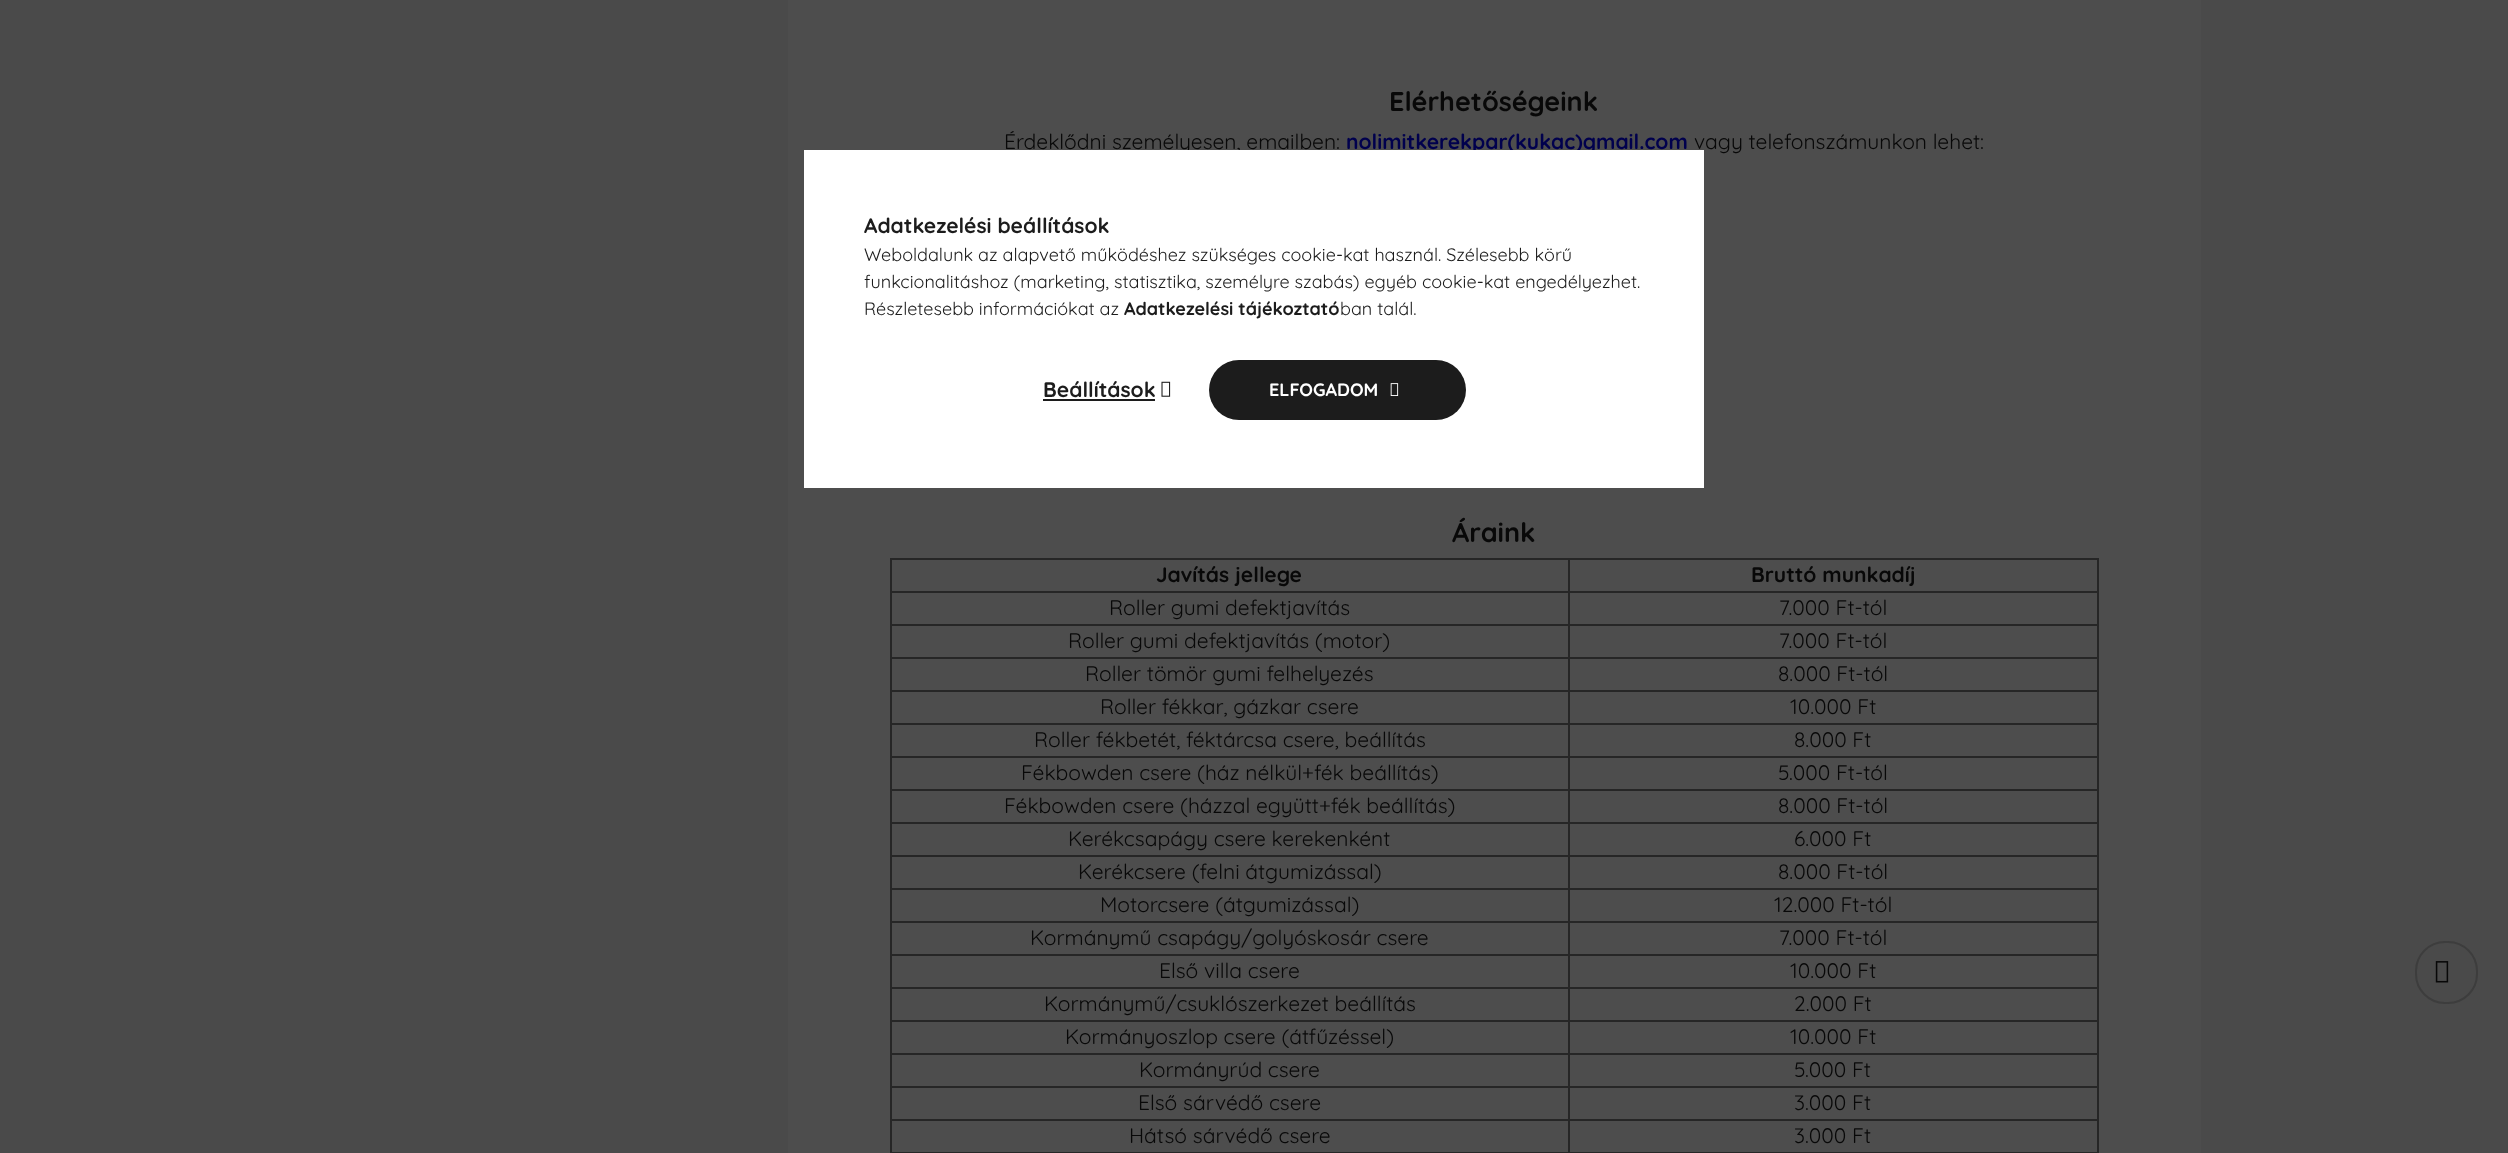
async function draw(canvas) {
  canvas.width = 2508
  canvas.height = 1153
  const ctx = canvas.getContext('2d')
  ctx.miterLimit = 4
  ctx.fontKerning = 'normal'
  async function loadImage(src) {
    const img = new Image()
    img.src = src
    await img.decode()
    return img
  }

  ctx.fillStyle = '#4a4a4a'
  ctx.fillRect(0, 0, 2508, 1153)
  ctx.fillStyle = '#4d4d4d'
  ctx.fillRect(788, 0, 1413, 1153)
  ctx.font = 'bold 27px Quicksand'
  ctx.fillStyle = '#080808'
  ctx.fillText('Elérhetőségeink', 1389, 111)
  ctx.font = '21px Quicksand'
  ctx.fillText('Érdeklődni személyesen, emailben:', 1004, 149)
  ctx.font = 'bold 21px Quicksand'
  ctx.fillStyle = '#00004d'
  ctx.fillText('nolimitkerekpar(kukac)gmail.com', 1346, 149)
  ctx.font = '21px Quicksand'
  ctx.fillStyle = '#080808'
  ctx.fillText('vagy telefonszámunkon lehet:', 1694, 149)
  ctx.font = 'bold 27px Quicksand'
  ctx.fillText('Áraink', 1452, 542)
  ctx.fillStyle = '#262626'
  ctx.fillRect(890, 558, 1209, 2)
  ctx.fillRect(2097, 558, 2, 595)
  ctx.fillRect(890, 558, 2, 595)
  ctx.font = 'bold 21px Quicksand'
  ctx.fillStyle = '#080808'
  ctx.fillText('Javítás jellege', 1156, 582)
  ctx.fillStyle = '#262626'
  ctx.fillRect(1568, 591, 531, 2)
  ctx.fillRect(1568, 624, 531, 2)
  ctx.fillRect(1568, 657, 531, 2)
  ctx.fillRect(1568, 690, 531, 2)
  ctx.fillRect(1568, 723, 531, 2)
  ctx.fillRect(1568, 756, 531, 2)
  ctx.fillRect(1568, 789, 531, 2)
  ctx.fillRect(1568, 822, 531, 2)
  ctx.fillRect(1568, 855, 531, 2)
  ctx.fillRect(1568, 888, 531, 2)
  ctx.fillRect(1568, 921, 531, 2)
  ctx.fillRect(1568, 954, 531, 2)
  ctx.fillRect(1568, 987, 531, 2)
  ctx.fillRect(1568, 1020, 531, 2)
  ctx.fillRect(1568, 1053, 531, 2)
  ctx.fillRect(1568, 1086, 531, 2)
  ctx.fillRect(1568, 1119, 531, 2)
  ctx.fillRect(890, 1152, 1209, 1)
  ctx.fillRect(1568, 1119, 2, 34)
  ctx.fillRect(890, 1119, 679, 2)
  ctx.fillRect(1568, 1086, 2, 35)
  ctx.fillRect(890, 1086, 679, 2)
  ctx.fillRect(1568, 1053, 2, 35)
  ctx.fillRect(890, 1053, 679, 2)
  ctx.fillRect(1568, 1020, 2, 35)
  ctx.fillRect(890, 1020, 679, 2)
  ctx.fillRect(1568, 987, 2, 35)
  ctx.fillRect(890, 987, 679, 2)
  ctx.fillRect(1568, 954, 2, 35)
  ctx.fillRect(890, 954, 679, 2)
  ctx.fillRect(1568, 921, 2, 35)
  ctx.fillRect(890, 921, 679, 2)
  ctx.fillRect(1568, 888, 2, 35)
  ctx.fillRect(890, 888, 679, 2)
  ctx.fillRect(1568, 855, 2, 35)
  ctx.fillRect(890, 855, 679, 2)
  ctx.fillRect(1568, 822, 2, 35)
  ctx.fillRect(890, 822, 679, 2)
  ctx.fillRect(1568, 789, 2, 35)
  ctx.fillRect(890, 789, 679, 2)
  ctx.fillRect(1568, 756, 2, 35)
  ctx.fillRect(890, 756, 679, 2)
  ctx.fillRect(1568, 723, 2, 35)
  ctx.fillRect(890, 723, 679, 2)
  ctx.fillRect(1568, 690, 2, 35)
  ctx.fillRect(890, 690, 679, 2)
  ctx.fillRect(1568, 657, 2, 35)
  ctx.fillRect(890, 657, 679, 2)
  ctx.fillRect(1568, 624, 2, 35)
  ctx.fillRect(890, 624, 679, 2)
  ctx.fillRect(1568, 591, 2, 35)
  ctx.fillRect(890, 591, 679, 2)
  ctx.fillRect(1568, 558, 2, 35)
  ctx.fillStyle = '#080808'
  ctx.fillText('Bruttó munkadíj', 1751, 582)
  ctx.font = '21px Quicksand'
  ctx.fillText('Roller gumi defektjavítás', 1109, 615)
  ctx.fillText('7.000 Ft-tól', 1779, 615)
  ctx.fillText('Roller gumi defektjavítás (motor)', 1068, 648)
  ctx.fillText('7.000 Ft-tól', 1779, 648)
  ctx.fillText('Roller tömör gumi felhelyezés', 1085, 681)
  ctx.fillText('8.000 Ft-tól', 1778, 681)
  ctx.fillText('Roller fékkar, gázkar csere', 1100, 714)
  ctx.fillText('10.000 Ft', 1790, 714)
  ctx.fillText('Roller fékbetét, féktárcsa csere, beállítás', 1034, 747)
  ctx.fillText('8.000 Ft', 1794, 747)
  ctx.fillText('Fékbowden csere (ház nélkül+fék beállítás)', 1021, 780)
  ctx.fillText('5.000 Ft-tól', 1778, 780)
  ctx.fillText('Fékbowden csere (házzal együtt+fék beállítás)', 1004, 813)
  ctx.fillText('8.000 Ft-tól', 1778, 813)
  ctx.fillText('Kerékcsapágy csere kerekenként', 1068, 846)
  ctx.fillText('6.000 Ft', 1794, 846)
  ctx.fillText('Kerékcsere (felni átgumizással)', 1078, 879)
  ctx.fillText('8.000 Ft-tól', 1778, 879)
  ctx.fillText('Motorcsere (átgumizással)', 1100, 912)
  ctx.fillText('12.000 Ft-tól', 1774, 912)
  ctx.fillText('Kormánymű csapágy/golyóskosár csere', 1030, 945)
  ctx.fillText('7.000 Ft-tól', 1779, 945)
  ctx.fillText('Első villa csere', 1159, 978)
  ctx.fillText('10.000 Ft', 1790, 978)
  ctx.fillText('Kormánymű/csuklószerkezet beállítás', 1044, 1011)
  ctx.fillText('2.000 Ft', 1794, 1011)
  ctx.fillText('Kormányoszlop csere (átfűzéssel)', 1065, 1044)
  ctx.fillText('10.000 Ft', 1790, 1044)
  ctx.fillText('Kormányrúd csere', 1139, 1077)
  ctx.fillText('5.000 Ft', 1794, 1077)
  ctx.fillText('Első sárvédő csere', 1138, 1110)
  ctx.fillText('3.000 Ft', 1794, 1110)
  ctx.fillText('Hátsó sárvédő csere', 1129, 1143)
  ctx.fillText('3.000 Ft', 1794, 1143)
  ctx.fillStyle = '#fff'
  ctx.fillRect(804, 150, 900, 338)
  ctx.font = 'bold 21px Quicksand'
  ctx.fillStyle = '#1c1c1c'
  ctx.fillText('Adatkezelési beállítások', 864, 233)
  ctx.font = '18px Quicksand'
  ctx.fillText('Weboldalunk az alapvető működéshez szükséges cookie-kat használ. Szélesebb körű', 864, 261)
  ctx.fillText('funkcionalitáshoz (marketing, statisztika, személyre szabás) egyéb cookie-kat engedélyezhet.', 864, 288)
  ctx.fillText('Részletesebb információkat az', 864, 315)
  ctx.font = 'bold 18px Quicksand'
  ctx.fillText('Adatkezelési tájékoztató', 1124, 315)
  ctx.font = '18px Quicksand'
  ctx.fillText('ban talál.', 1340, 315)
  ctx.font = 'bold 21px Quicksand'
  ctx.fillText('Beállítások', 1043, 397)
  ctx.fillRect(1043, 399, 112, 2)
  ctx.drawImage(await loadImage('image0.png'), 1161, 381, 10, 16)
  ctx.beginPath()
  ctx.roundRect(1209, 360, 257, 60, 30)
  ctx.fill()
  ctx.font = 'bold 18px Quicksand'
  ctx.fillStyle = '#fff'
  ctx.fillText('ELFOGADOM', 1269, 396)
  ctx.drawImage(await loadImage('image1.png'), 1390, 383, 9, 13)
  ctx.beginPath()
  ctx.roundRect(2416, 942, 61, 61, 29)
  ctx.strokeStyle = '#3d3d3d'
  ctx.lineWidth = 2
  ctx.stroke()
  ctx.drawImage(await loadImage('image2.png'), 2435, 961, 14, 22)
}

draw(document.querySelector('canvas'))
